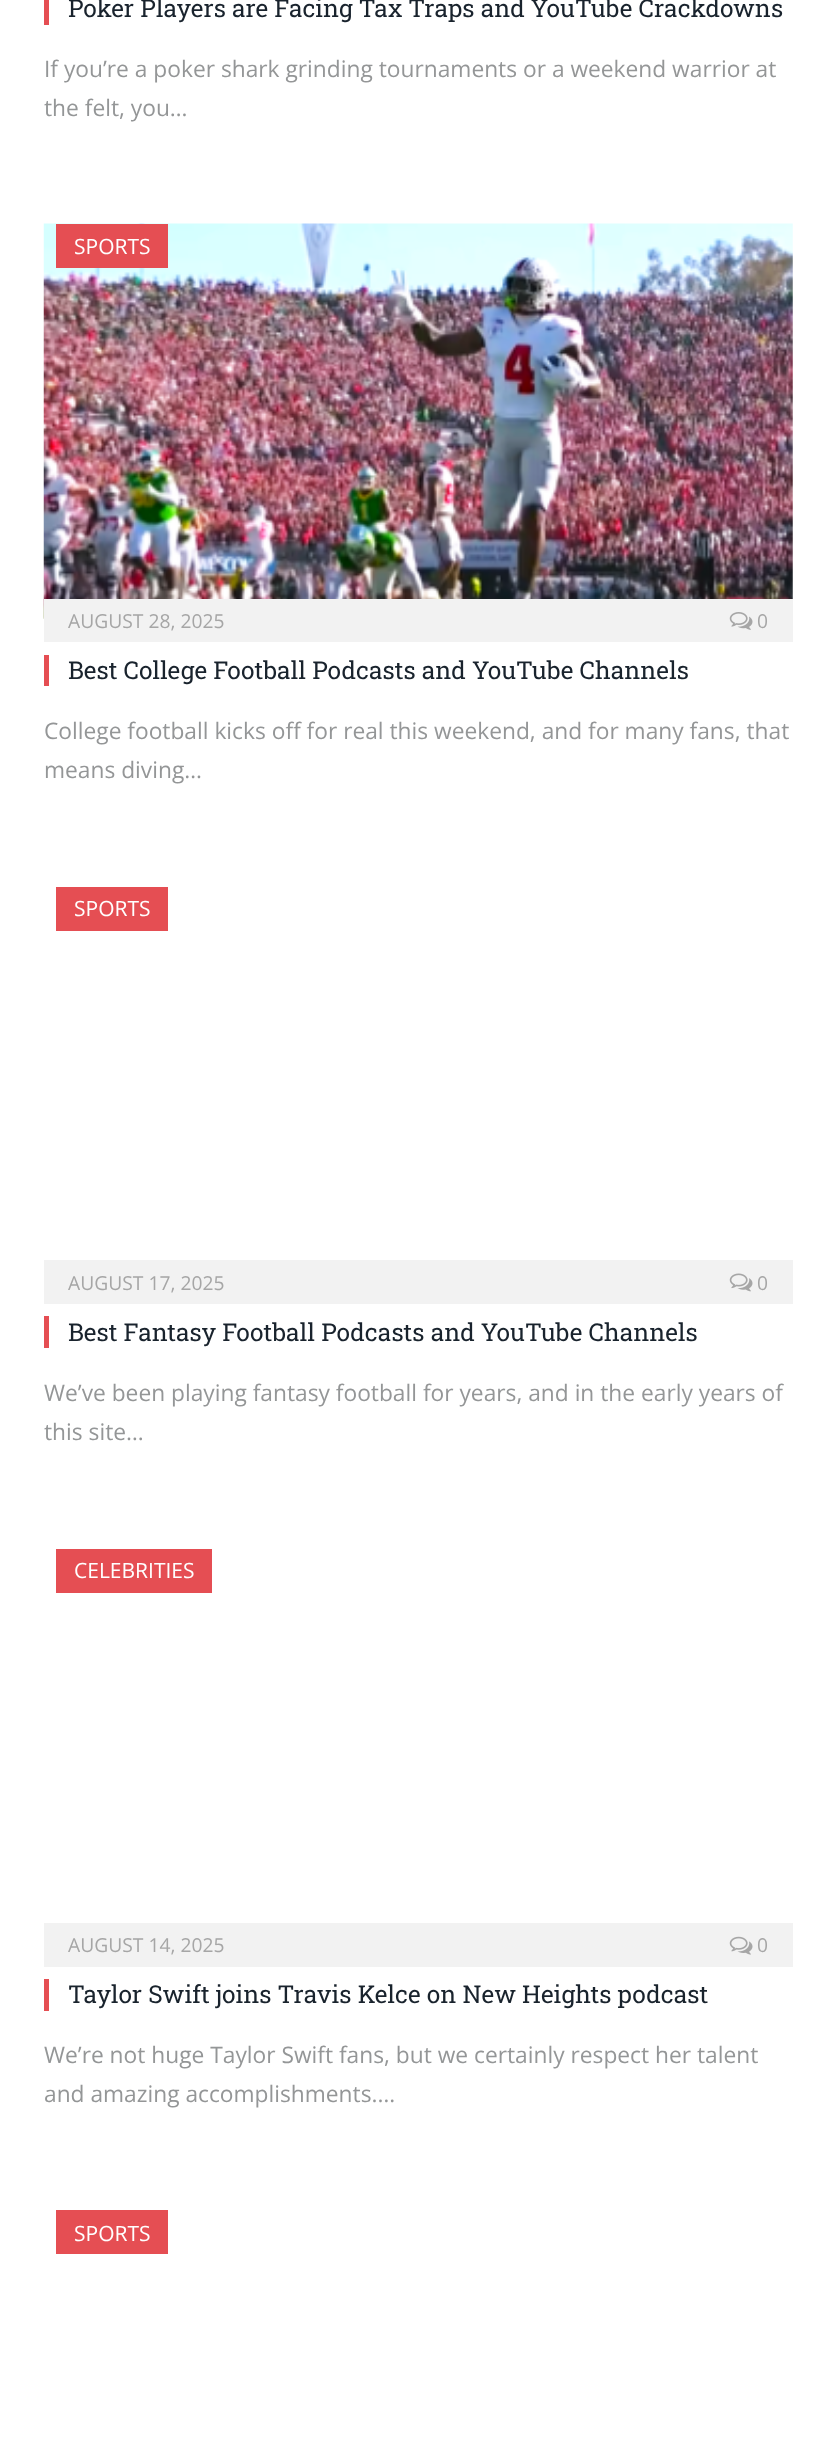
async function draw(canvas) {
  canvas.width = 835
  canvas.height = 2457
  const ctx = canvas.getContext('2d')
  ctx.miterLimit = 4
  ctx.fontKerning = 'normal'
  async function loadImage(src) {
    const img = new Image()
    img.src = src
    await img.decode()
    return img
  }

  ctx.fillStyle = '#fff'
  ctx.fillRect(0, 0, 835, 2457)
  ctx.fillStyle = '#e54e53'
  ctx.fillRect(44, 0, 5, 25)
  ctx.font = '24.5px Roboto Slab'
  ctx.fillStyle = '#19232d'
  ctx.fillText('Poker Players are Facing Tax Traps and YouTube Crackdowns', 68, 17)
  ctx.font = '22.75px Open Sans'
  ctx.fillStyle = '#949697'
  ctx.fillText('If you’re a poker shark grinding tournaments or a weekend warrior at', 44, 77)
  ctx.fillText('the felt, you…', 44, 116)
  ctx.drawImage(await loadImage('image0.png'), 43, 223, 750, 396)
  ctx.fillStyle = '#e54e53'
  ctx.fillRect(56, 224, 112, 44)
  ctx.font = '21px Open Sans'
  ctx.fillStyle = '#fff'
  ctx.fillText('SPORTS', 74, 254)
  ctx.fillStyle = '#f2f2f2'
  ctx.fillRect(44, 599, 749, 43)
  ctx.font = '19.25px Open Sans'
  ctx.fillStyle = '#a6a6a6'
  ctx.fillText('AUGUST 28, 2025', 68, 628)
  ctx.drawImage(await loadImage('image1.png'), 729, 612, 24, 18)
  ctx.fillText('0', 757, 628)
  ctx.fillStyle = '#e54e53'
  ctx.fillRect(44, 655, 5, 31)
  ctx.font = '24.5px Roboto Slab'
  ctx.fillStyle = '#19232d'
  ctx.fillText('Best College Football Podcasts and YouTube Channels', 68, 679)
  ctx.font = '22.75px Open Sans'
  ctx.fillStyle = '#949697'
  ctx.fillText('College football kicks off for real this weekend, and for many fans, that', 44, 739)
  ctx.fillText('means diving…', 44, 778)
  ctx.fillStyle = '#e54e53'
  ctx.fillRect(56, 887, 112, 44)
  ctx.font = '21px Open Sans'
  ctx.fillStyle = '#fff'
  ctx.fillText('SPORTS', 74, 916)
  ctx.fillStyle = '#f2f2f2'
  ctx.fillRect(44, 1260, 749, 44)
  ctx.font = '19.25px Open Sans'
  ctx.fillStyle = '#a6a6a6'
  ctx.fillText('AUGUST 17, 2025', 68, 1290)
  ctx.drawImage(await loadImage('image2.png'), 729, 1273, 24, 19)
  ctx.fillText('0', 757, 1290)
  ctx.fillStyle = '#e54e53'
  ctx.fillRect(44, 1316, 5, 32)
  ctx.font = '24.5px Roboto Slab'
  ctx.fillStyle = '#19232d'
  ctx.fillText('Best Fantasy Football Podcasts and YouTube Channels', 68, 1341)
  ctx.font = '22.75px Open Sans'
  ctx.fillStyle = '#949697'
  ctx.fillText('We’ve been playing fantasy football for years, and in the early years of', 44, 1401)
  ctx.fillText('this site…', 44, 1440)
  ctx.fillStyle = '#e54e53'
  ctx.fillRect(56, 1549, 156, 44)
  ctx.font = '21px Open Sans'
  ctx.fillStyle = '#fff'
  ctx.fillText('CELEBRITIES', 74, 1578)
  ctx.fillStyle = '#f2f2f2'
  ctx.fillRect(44, 1923, 749, 44)
  ctx.font = '19.25px Open Sans'
  ctx.fillStyle = '#a6a6a6'
  ctx.fillText('AUGUST 14, 2025', 68, 1952)
  ctx.drawImage(await loadImage('image3.png'), 729, 1936, 24, 19)
  ctx.fillText('0', 757, 1952)
  ctx.fillStyle = '#e54e53'
  ctx.fillRect(44, 1979, 5, 32)
  ctx.font = '24.5px Roboto Slab'
  ctx.fillStyle = '#19232d'
  ctx.fillText('Taylor Swift joins Travis Kelce on New Heights podcast', 68, 2003)
  ctx.font = '22.75px Open Sans'
  ctx.fillStyle = '#949697'
  ctx.fillText('We’re not huge Taylor Swift fans, but we certainly respect her talent', 44, 2063)
  ctx.fillText('and amazing accomplishments.…', 44, 2102)
  ctx.fillStyle = '#e54e53'
  ctx.fillRect(56, 2210, 112, 44)
  ctx.font = '21px Open Sans'
  ctx.fillStyle = '#fff'
  ctx.fillText('SPORTS', 74, 2241)
}

draw(document.querySelector('canvas'))
